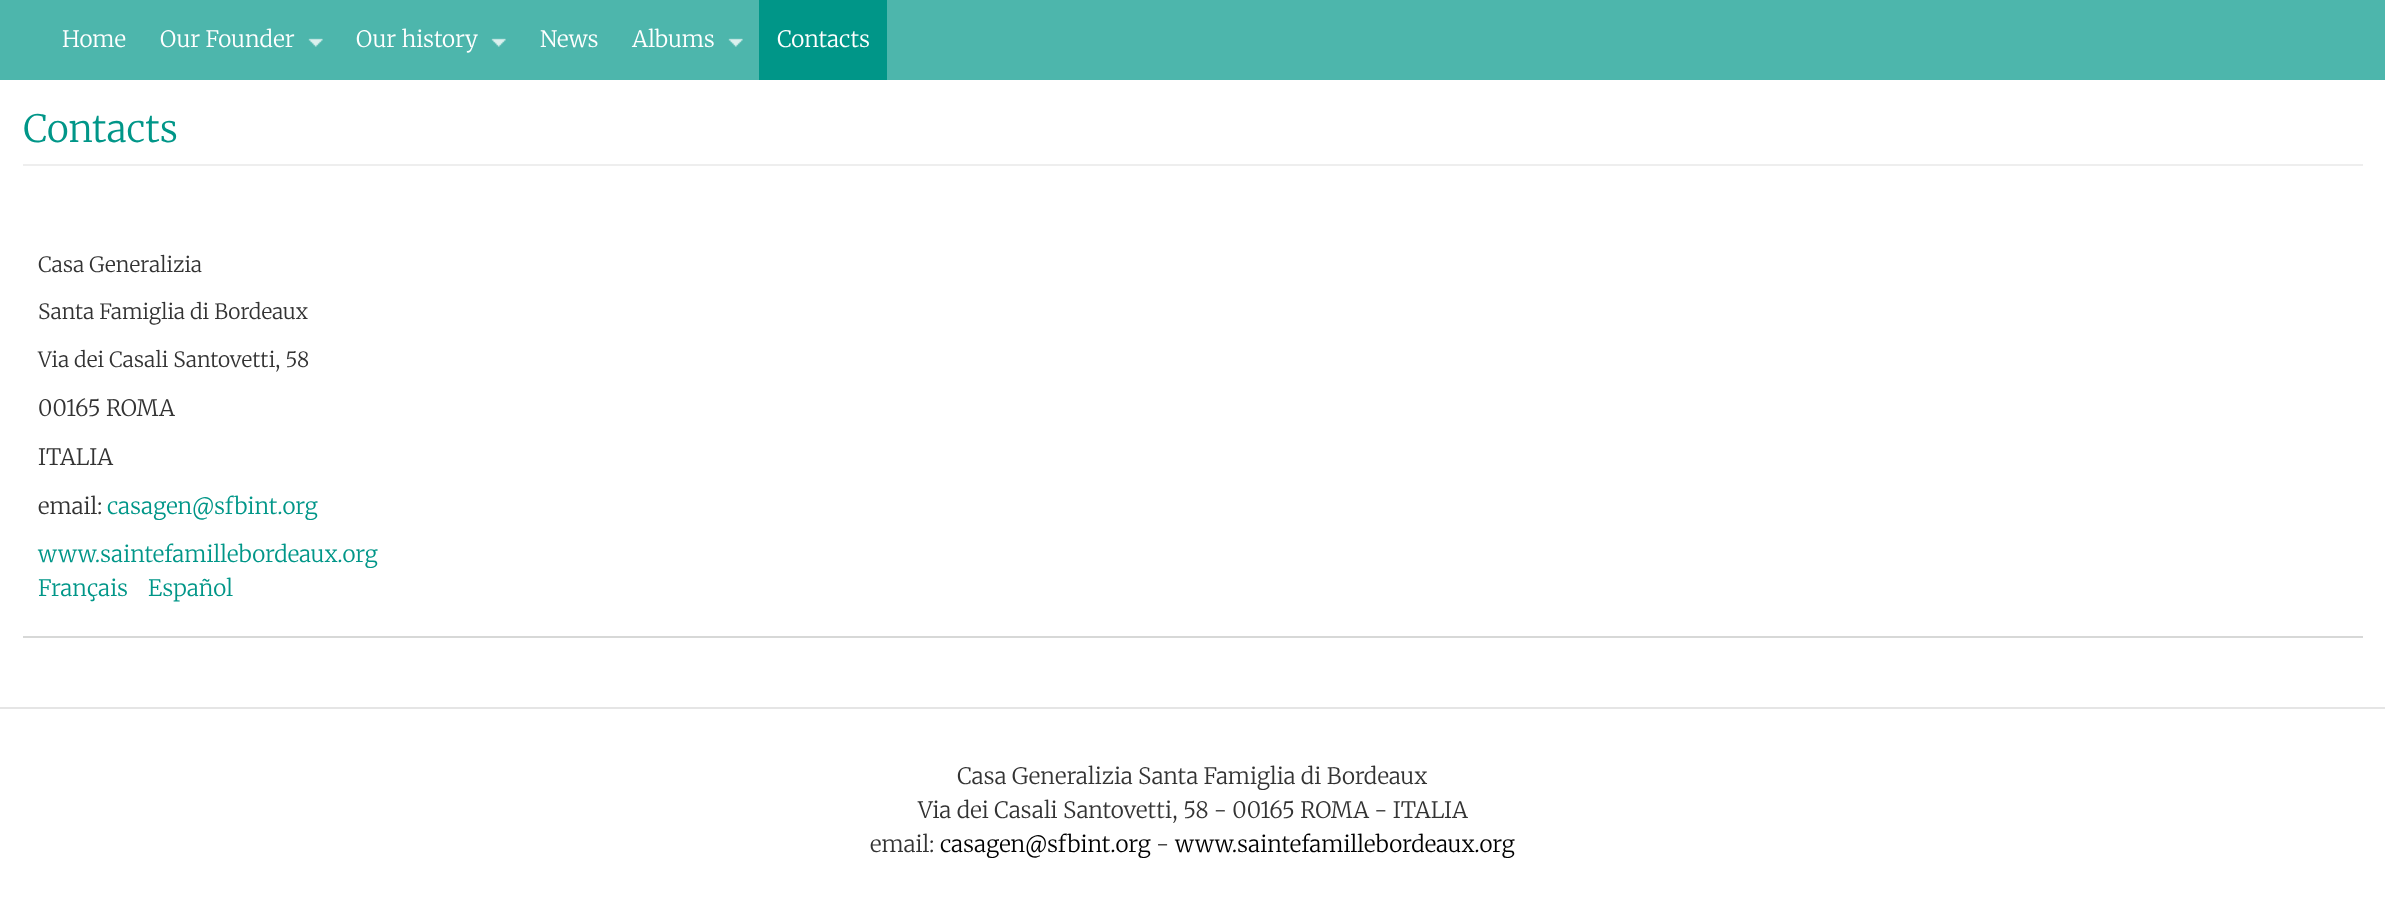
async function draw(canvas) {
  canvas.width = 2385
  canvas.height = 922
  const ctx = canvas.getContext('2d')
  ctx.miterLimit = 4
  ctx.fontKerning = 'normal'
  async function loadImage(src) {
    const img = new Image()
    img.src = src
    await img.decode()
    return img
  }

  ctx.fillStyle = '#fff'
  ctx.fillRect(0, 0, 2385, 922)
  ctx.fillStyle = '#4db6ac'
  ctx.fillRect(0, 0, 2385, 80)
  ctx.font = '300 22.5px Merriweather'
  ctx.fillStyle = '#fff'
  ctx.fillText('Home', 62, 47)
  ctx.fillText('Our Founder', 160, 47)
  ctx.drawImage(await loadImage('image0.png'), 308, 38, 15, 9)
  ctx.fillText('Our history', 356, 47)
  ctx.drawImage(await loadImage('image0.png'), 491, 38, 15, 9)
  ctx.fillText('News', 540, 47)
  ctx.fillText('Albums', 632, 47)
  ctx.drawImage(await loadImage('image1.png'), 728, 38, 15, 9)
  ctx.fillStyle = '#009688'
  ctx.fillRect(759, 0, 128, 80)
  ctx.fillStyle = '#fff'
  ctx.fillText('Contacts', 777, 47)
  ctx.fillStyle = '#eee'
  ctx.fillRect(23, 164, 2340, 2)
  ctx.font = '300 37.5px Merriweather'
  ctx.fillStyle = '#009688'
  ctx.fillText('Contacts', 23, 142)
  ctx.fillStyle = '#d7d8d7'
  ctx.fillRect(23, 636, 2340, 2)
  ctx.font = '300 21px Merriweather'
  ctx.fillStyle = '#333'
  ctx.fillText('Casa Generalizia', 38, 272)
  ctx.fillText('Santa Famiglia di Bordeaux', 38, 319)
  ctx.fillText('Via dei Casali Santovetti, 58', 38, 367)
  ctx.font = '300 22.5px Merriweather'
  ctx.fillText('00165 ROMA', 38, 416)
  ctx.fillText('ITALIA', 38, 465)
  ctx.fillText('email:', 38, 514)
  ctx.fillStyle = '#009688'
  ctx.fillText('casagen@sfbint.org', 107, 514)
  ctx.fillText('www.saintefamillebordeaux.org', 38, 562)
  ctx.fillText('Français', 38, 596)
  ctx.fillText('Español', 148, 596)
  ctx.fillStyle = '#e5e5e5'
  ctx.fillRect(0, 707, 2385, 2)
  ctx.fillStyle = '#333'
  ctx.fillText('Casa Generalizia Santa Famiglia di Bordeaux', 957, 784)
  ctx.fillText('Via dei Casali Santovetti, 58 - 00165 ROMA - ITALIA', 918, 818)
  ctx.fillText('email:', 870, 852)
  ctx.fillStyle = '#000'
  ctx.fillText('casagen@sfbint.org', 940, 852)
  ctx.fillStyle = '#333'
  ctx.fillText('-', 1156, 852)
  ctx.fillStyle = '#000'
  ctx.fillText('www.saintefamillebordeaux.org', 1175, 852)
}

draw(document.querySelector('canvas'))
